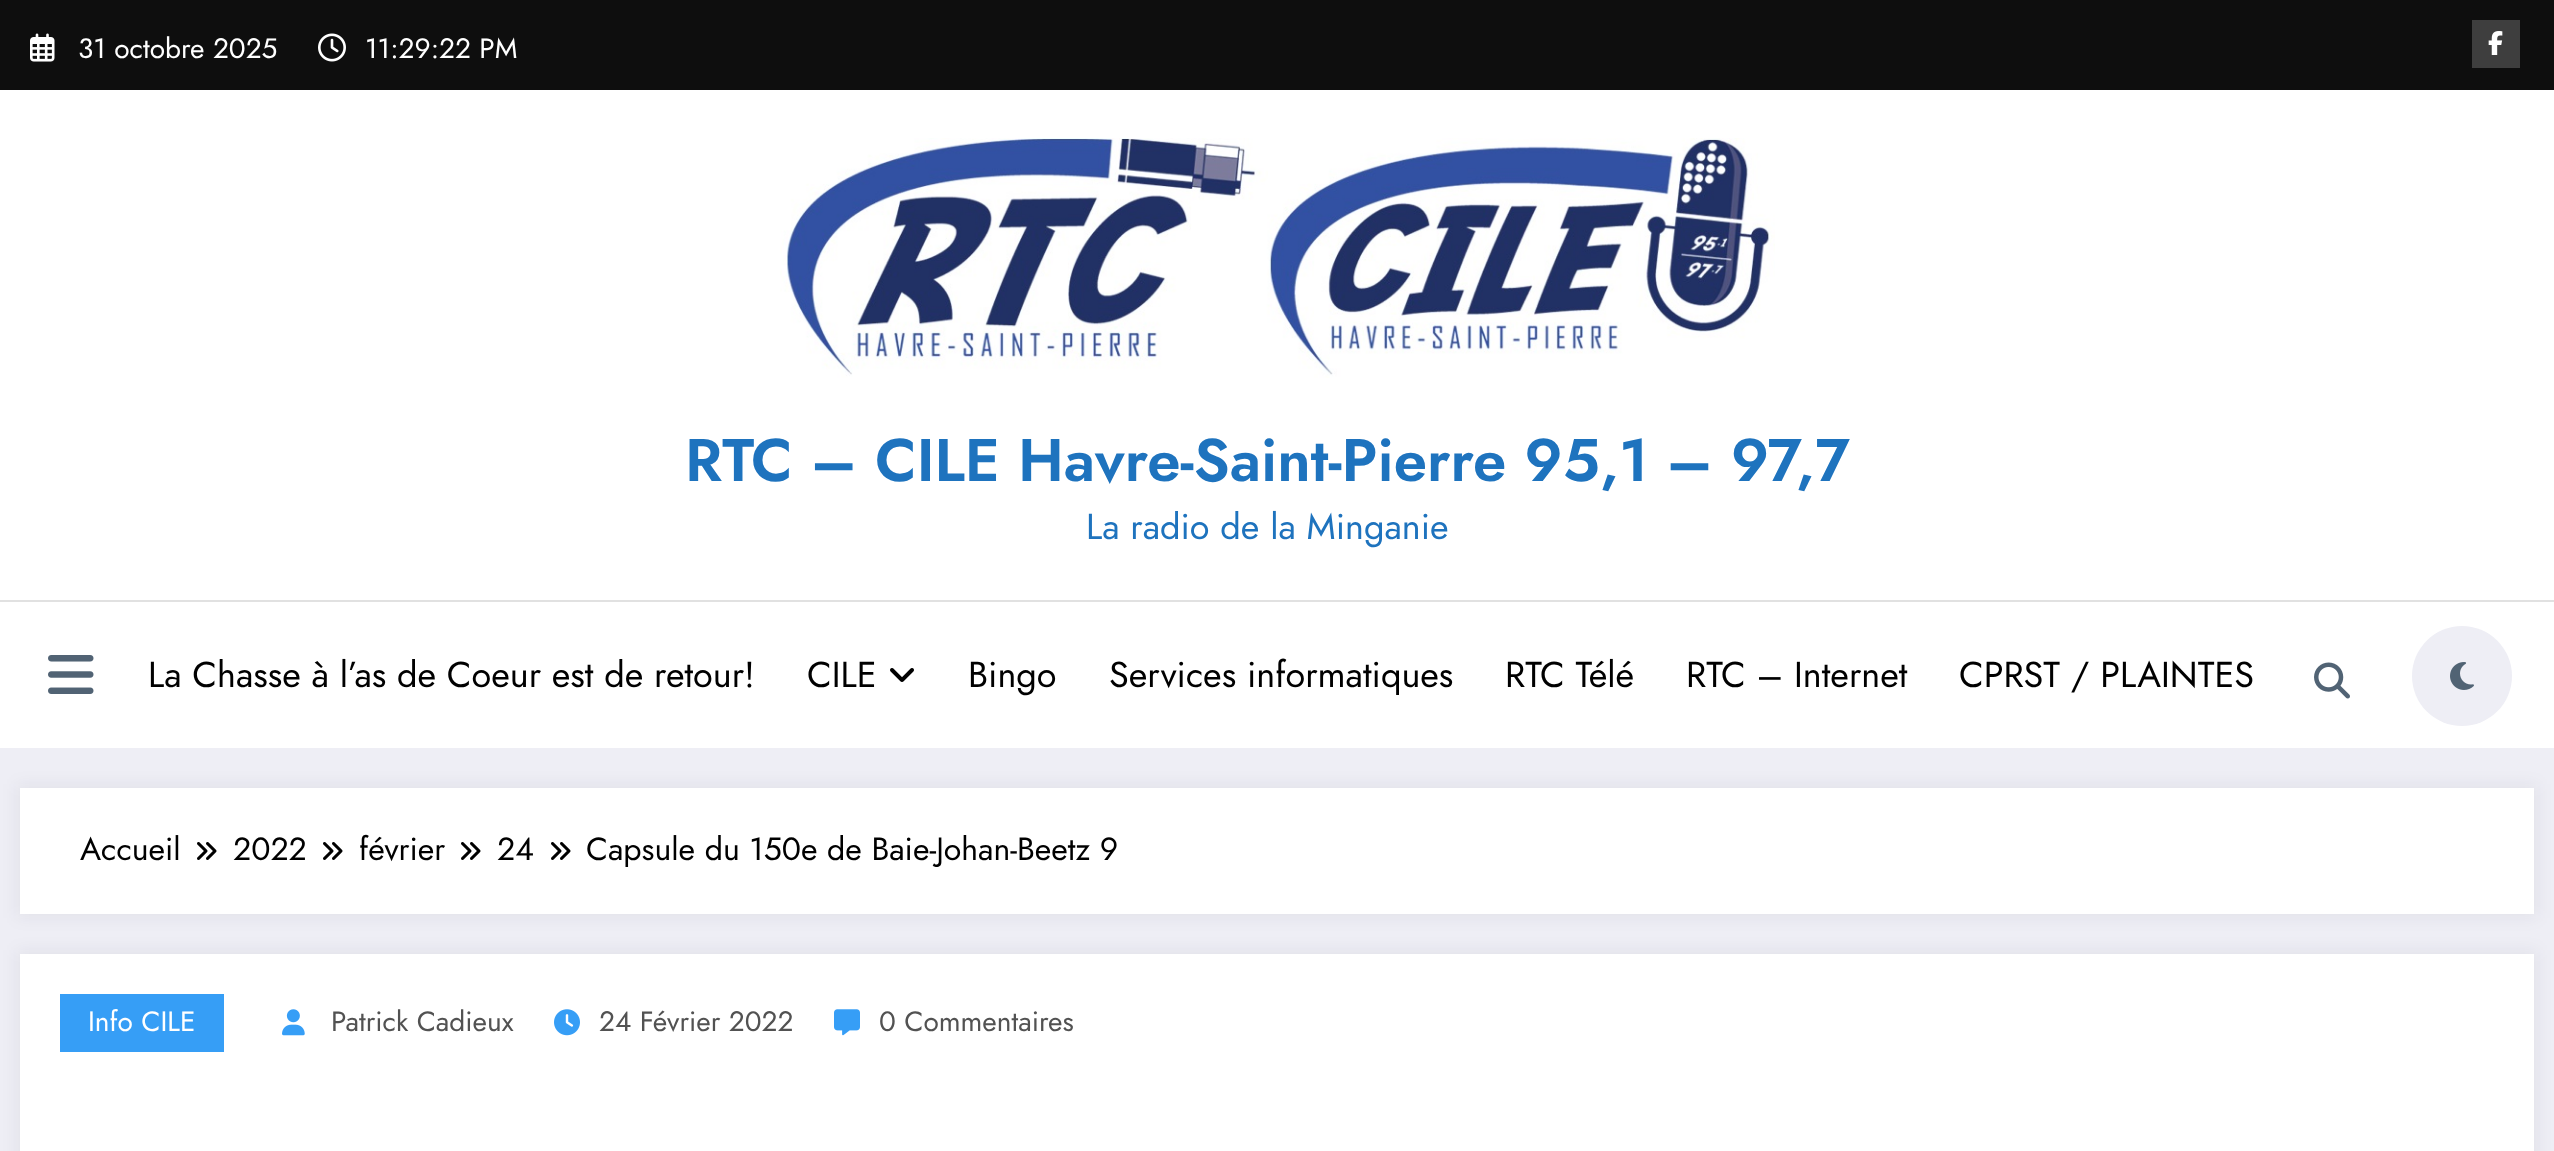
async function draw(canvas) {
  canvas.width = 2554
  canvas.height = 1151
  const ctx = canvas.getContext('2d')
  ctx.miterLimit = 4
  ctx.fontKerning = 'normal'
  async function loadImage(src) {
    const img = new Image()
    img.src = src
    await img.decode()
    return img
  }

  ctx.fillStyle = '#eeeef5'
  ctx.fillRect(0, 0, 2554, 1151)
  ctx.fillStyle = '#0e0e0e'
  ctx.fillRect(0, 0, 2554, 90)
  ctx.drawImage(await loadImage('image0.png'), 30, 33, 25, 29)
  ctx.font = '28px Jost'
  ctx.fillStyle = '#fff'
  ctx.fillText('31 octobre 2025', 78, 58)
  ctx.drawImage(await loadImage('image1.png'), 318, 33, 28, 29)
  ctx.fillText('11:29:22 PM', 365, 58)
  ctx.fillStyle = '#3e3e3e'
  ctx.fillRect(2472, 20, 48, 48)
  ctx.drawImage(await loadImage('image2.png'), 2488, 31, 15, 24)
  ctx.fillStyle = '#fff'
  ctx.fillRect(0, 90, 2554, 658)
  ctx.drawImage(await loadImage('image3.png'), 780, 138, 995, 240)
  ctx.font = '600 60px Jost'
  ctx.fillStyle = '#1e73be'
  ctx.fillText('RTC – CILE Havre-Saint-Pierre 95,1 – 97,7', 685, 481)
  ctx.font = '36px Jost'
  ctx.fillText('La radio de la Minganie', 1086, 539)
  ctx.fillStyle = '#e1e1e1'
  ctx.fillRect(0, 600, 2554, 2)
  ctx.drawImage(await loadImage('image4.png'), 48, 655, 46, 39)
  ctx.fillStyle = '#000'
  ctx.fillText('La Chasse à l’as de Coeur est de retour!', 148, 687)
  ctx.fillText('CILE', 807, 687)
  ctx.drawImage(await loadImage('image5.png'), 890, 668, 24, 14)
  ctx.fillText('Bingo', 968, 687)
  ctx.fillText('Services informatiques', 1109, 687)
  ctx.fillText('RTC Télé', 1505, 687)
  ctx.fillText('RTC – Internet', 1686, 687)
  ctx.fillText('CPRST / PLAINTES', 1959, 687)
  ctx.drawImage(await loadImage('image6.png'), 2314, 662, 36, 37)
  ctx.fillStyle = '#eeeef5'
  ctx.beginPath()
  ctx.arc(2462, 676, 50, 0, 2 * Math.PI)
  ctx.fill()
  ctx.drawImage(await loadImage('image7.png'), 2450, 662, 24, 28)
  ctx.fillStyle = '#1717230d'
  ctx.filter = 'blur(8px)'
  ctx.beginPath()
  ctx.rect(16, 784, 2522, 134)
  ctx.fill()
  ctx.filter = 'none'
  ctx.fillStyle = '#fff'
  ctx.fillRect(20, 788, 2514, 126)
  ctx.font = '32px Jost'
  ctx.fillStyle = '#000'
  ctx.fillText('Accueil', 80, 860)
  ctx.drawImage(await loadImage('image8.png'), 197, 842, 20, 18)
  ctx.fillText('2022', 233, 860)
  ctx.drawImage(await loadImage('image8.png'), 323, 842, 20, 18)
  ctx.fillText('février', 359, 860)
  ctx.drawImage(await loadImage('image8.png'), 461, 842, 20, 18)
  ctx.fillText('24', 497, 860)
  ctx.drawImage(await loadImage('image8.png'), 551, 842, 20, 18)
  ctx.fillText('Capsule du 150e de Baie-Johan-Beetz 9', 586, 860)
  ctx.fillStyle = '#1717230d'
  ctx.filter = 'blur(8px)'
  ctx.beginPath()
  ctx.rect(16, 950, 2522, 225)
  ctx.fill()
  ctx.filter = 'none'
  ctx.fillStyle = '#fff'
  ctx.fillRect(20, 954, 2514, 197)
  ctx.fillStyle = '#369ef6'
  ctx.fillRect(60, 994, 164, 58)
  ctx.font = '28px Jost'
  ctx.fillStyle = '#fff'
  ctx.fillText('Info CILE', 88, 1031)
  ctx.drawImage(await loadImage('image9.png'), 282, 1009, 23, 27)
  ctx.fillStyle = '#525252'
  ctx.fillText('Patrick Cadieux', 331, 1031)
  ctx.drawImage(await loadImage('image10.png'), 554, 1009, 26, 27)
  ctx.fillText('24 Février 2022', 599, 1031)
  ctx.drawImage(await loadImage('image11.png'), 834, 1009, 26, 27)
  ctx.fillText('0 Commentaires', 879, 1031)
}

draw(document.querySelector('canvas'))
